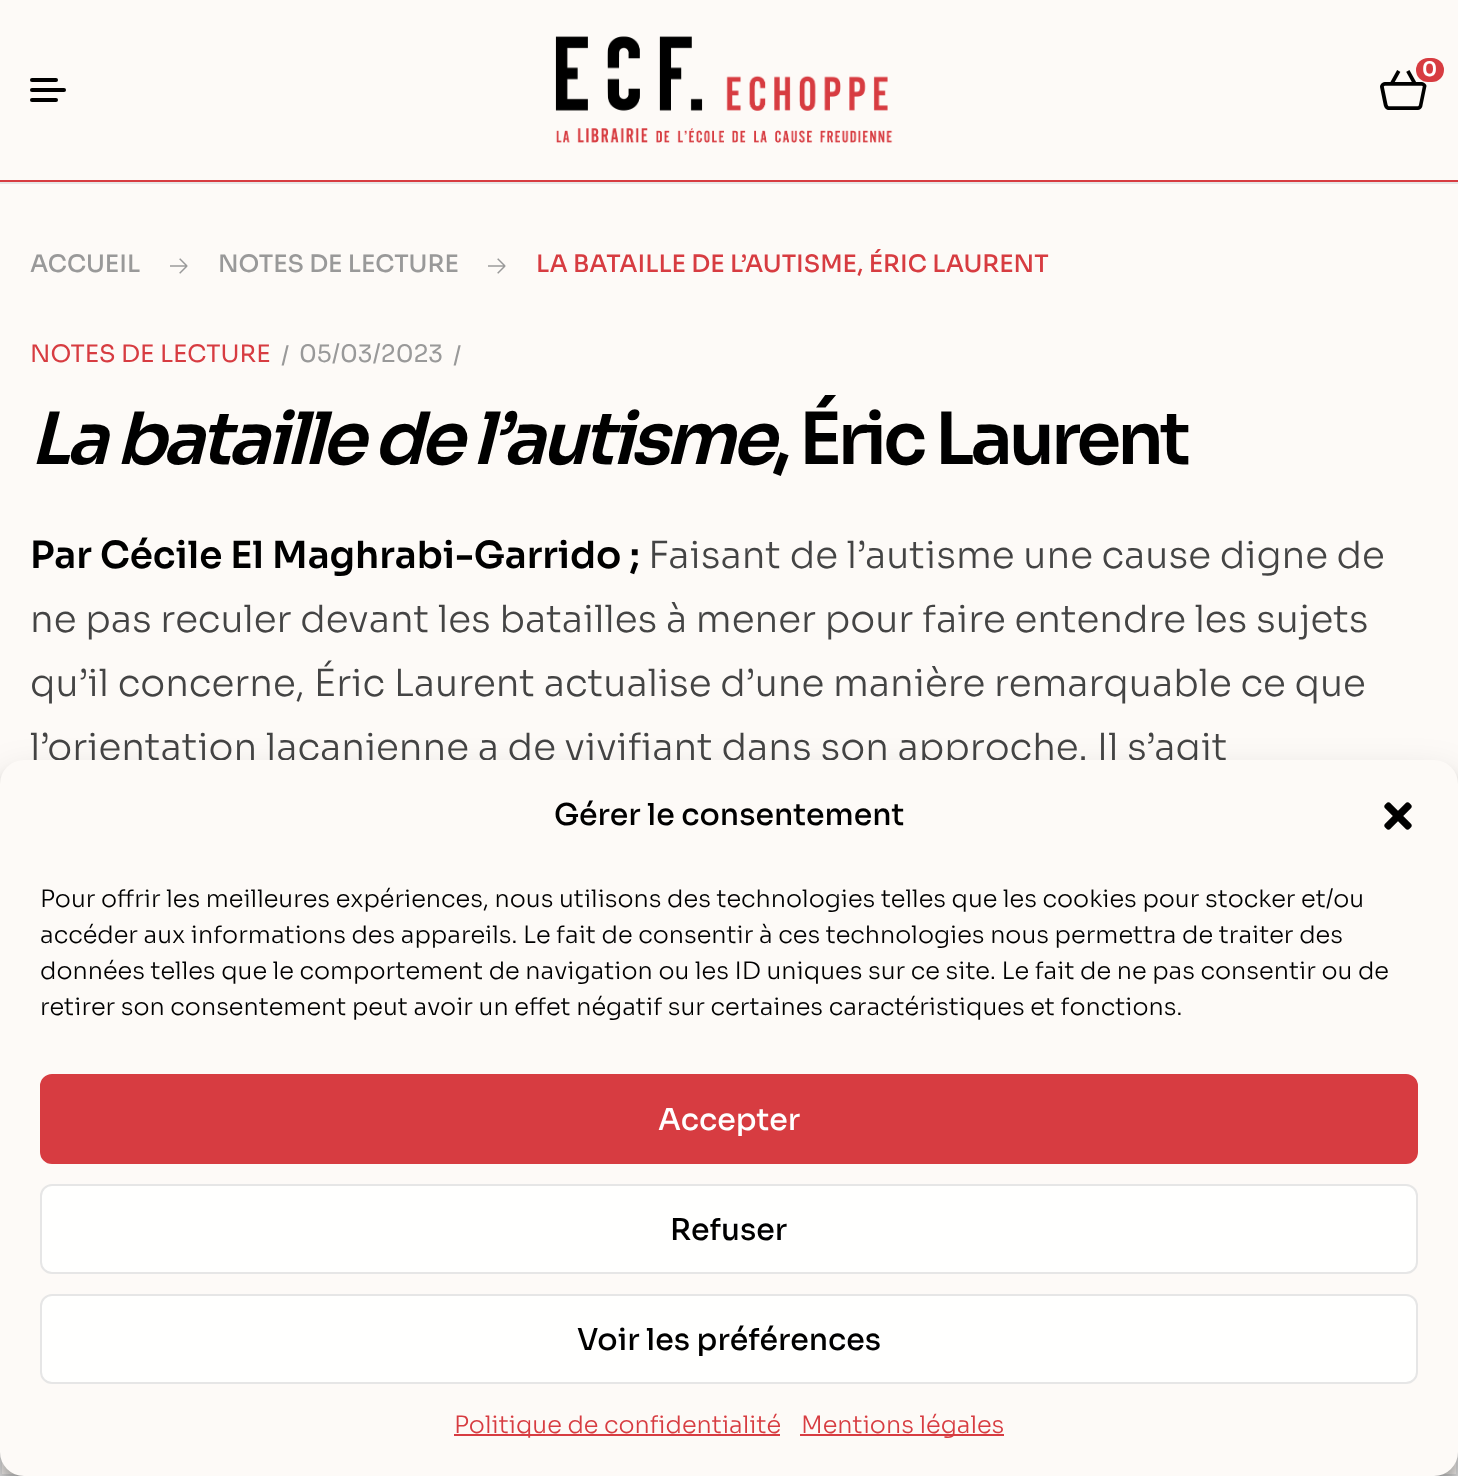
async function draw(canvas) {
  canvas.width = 1458
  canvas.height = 1476
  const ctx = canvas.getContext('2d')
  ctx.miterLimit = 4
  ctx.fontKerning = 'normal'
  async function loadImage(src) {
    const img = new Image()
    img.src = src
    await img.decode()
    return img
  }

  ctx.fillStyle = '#fdfaf7'
  ctx.fillRect(0, 0, 1458, 1476)
  ctx.drawImage(await loadImage('image0.png'), 555, 36, 338, 107)
  ctx.drawImage(await loadImage('image1.png'), 1380, 70, 47, 40)
  ctx.fillStyle = '#d73c41'
  ctx.beginPath()
  ctx.roundRect(1416, 58, 28, 24, 12)
  ctx.fill()
  ctx.font = '600 20px Sora'
  ctx.fillStyle = '#fff'
  ctx.fillText('0', 1422, 76)
  ctx.fillStyle = '#000'
  ctx.beginPath()
  ctx.roundRect(30, 78, 28, 4, 2)
  ctx.fill()
  ctx.beginPath()
  ctx.roundRect(30, 88, 36, 4, 2)
  ctx.fill()
  ctx.beginPath()
  ctx.roundRect(30, 98, 28, 4, 2)
  ctx.fill()
  ctx.fillStyle = '#d73c41'
  ctx.fillRect(0, 180, 1458, 2)
  ctx.fillStyle = '#e6e6e6'
  ctx.fillRect(0, 182, 1458, 2)
  ctx.font = '500 24px Sora'
  ctx.fillStyle = '#999'
  ctx.fillText('ACCUEIL', 30, 272)
  ctx.drawImage(await loadImage('image2.png'), 170, 258, 18, 16)
  ctx.fillText('NOTES DE LECTURE', 218, 272)
  ctx.drawImage(await loadImage('image2.png'), 488, 258, 18, 16)
  ctx.fillStyle = '#d73c41'
  ctx.fillText('LA BATAILLE DE L’AUTISME, ÉRIC LAURENT', 536, 272)
  ctx.font = '24px Sora'
  ctx.fillText('NOTES DE LECTURE', 30, 362)
  ctx.fillStyle = '#999'
  ctx.fillText('/', 281, 364)
  ctx.fillText('05/03/2023', 299, 362)
  ctx.fillText('/', 453, 364)
  ctx.letterSpacing = '-4px'
  ctx.font = 'italic 600 72px Sora'
  ctx.fillStyle = '#000'
  ctx.fillText('La bataille de l’autisme', 30, 464)
  ctx.font = '600 72px Sora'
  ctx.fillText(', Éric Laurent', 772, 464)
  ctx.letterSpacing = '0px'
  ctx.font = '600 37.35px Sora'
  ctx.fillText('Par Cécile El Maghrabi-Garrido ;', 30, 568)
  ctx.font = '300 37.35px Sora'
  ctx.fillStyle = '#444'
  ctx.fillText('Faisant de l’autisme une cause digne de', 648, 568)
  ctx.fillText('ne pas reculer devant les batailles à mener pour faire entendre les sujets', 30, 632)
  ctx.fillText('qu’il concerne, Éric Laurent actualise d’une manière remarquable ce que', 30, 696)
  ctx.fillText('l’orientation lacanienne a de vivifiant dans son approche. Il s’agit', 30, 760)
  ctx.strokeStyle = '#e6e6e6'
  ctx.lineWidth = 2
  ctx.strokeRect(1, 1219, 1456, 256)
  ctx.fillStyle = '#0000003b'
  ctx.filter = 'blur(6px)'
  ctx.beginPath()
  ctx.roundRect(0, 772, 1458, 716, 24)
  ctx.fill()
  ctx.filter = 'none'
  ctx.fillStyle = '#00000030'
  ctx.filter = 'blur(20px)'
  ctx.beginPath()
  ctx.roundRect(0, 780, 1458, 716, 24)
  ctx.fill()
  ctx.filter = 'none'
  ctx.fillStyle = '#fdfaf7'
  ctx.beginPath()
  ctx.roundRect(0, 760, 1458, 716, 24)
  ctx.fill()
  ctx.font = '500 30px Sora'
  ctx.fillStyle = '#000'
  ctx.fillText('Gérer le consentement', 554, 825)
  ctx.drawImage(await loadImage('image3.png'), 1384, 802, 28, 28)
  ctx.font = '300 24px Sora'
  ctx.fillText('Pour offrir les meilleures expériences, nous utilisons des technologies telles que les cookies pour stocker et/ou', 40, 907)
  ctx.fillText('accéder aux informations des appareils. Le fait de consentir à ces technologies nous permettra de traiter des', 40, 943)
  ctx.fillText('données telles que le comportement de navigation ou les ID uniques sur ce site. Le fait de ne pas consentir ou de', 40, 979)
  ctx.fillText('retirer son consentement peut avoir un effet négatif sur certaines caractéristiques et fonctions.', 40, 1015)
  ctx.fillStyle = '#d73c41'
  ctx.beginPath()
  ctx.roundRect(41, 1075, 1376, 88, 11)
  ctx.fill()
  ctx.strokeStyle = '#d73c41'
  ctx.stroke()
  ctx.font = '500 30px Sora'
  ctx.fillStyle = '#fff'
  ctx.fillText('Accepter', 658, 1130)
  ctx.fillStyle = '#fffffe'
  ctx.beginPath()
  ctx.roundRect(41, 1185, 1376, 88, 11)
  ctx.fill()
  ctx.strokeStyle = '#e6e6e6'
  ctx.stroke()
  ctx.fillStyle = '#000'
  ctx.fillText('Refuser', 670, 1240)
  ctx.fillStyle = '#fffffe'
  ctx.beginPath()
  ctx.roundRect(41, 1295, 1376, 88, 11)
  ctx.fill()
  ctx.stroke()
  ctx.fillStyle = '#000'
  ctx.fillText('Voir les préférences', 577, 1350)
  ctx.fillStyle = '#d73c41'
  ctx.fillRect(454, 1434, 326, 2)
  ctx.font = '300 24px Sora'
  ctx.fillText('Politique de confidentialité', 454, 1433)
  ctx.fillRect(800, 1434, 204, 2)
  ctx.fillText('Mentions légales', 801, 1433)
}

draw(document.querySelector('canvas'))
